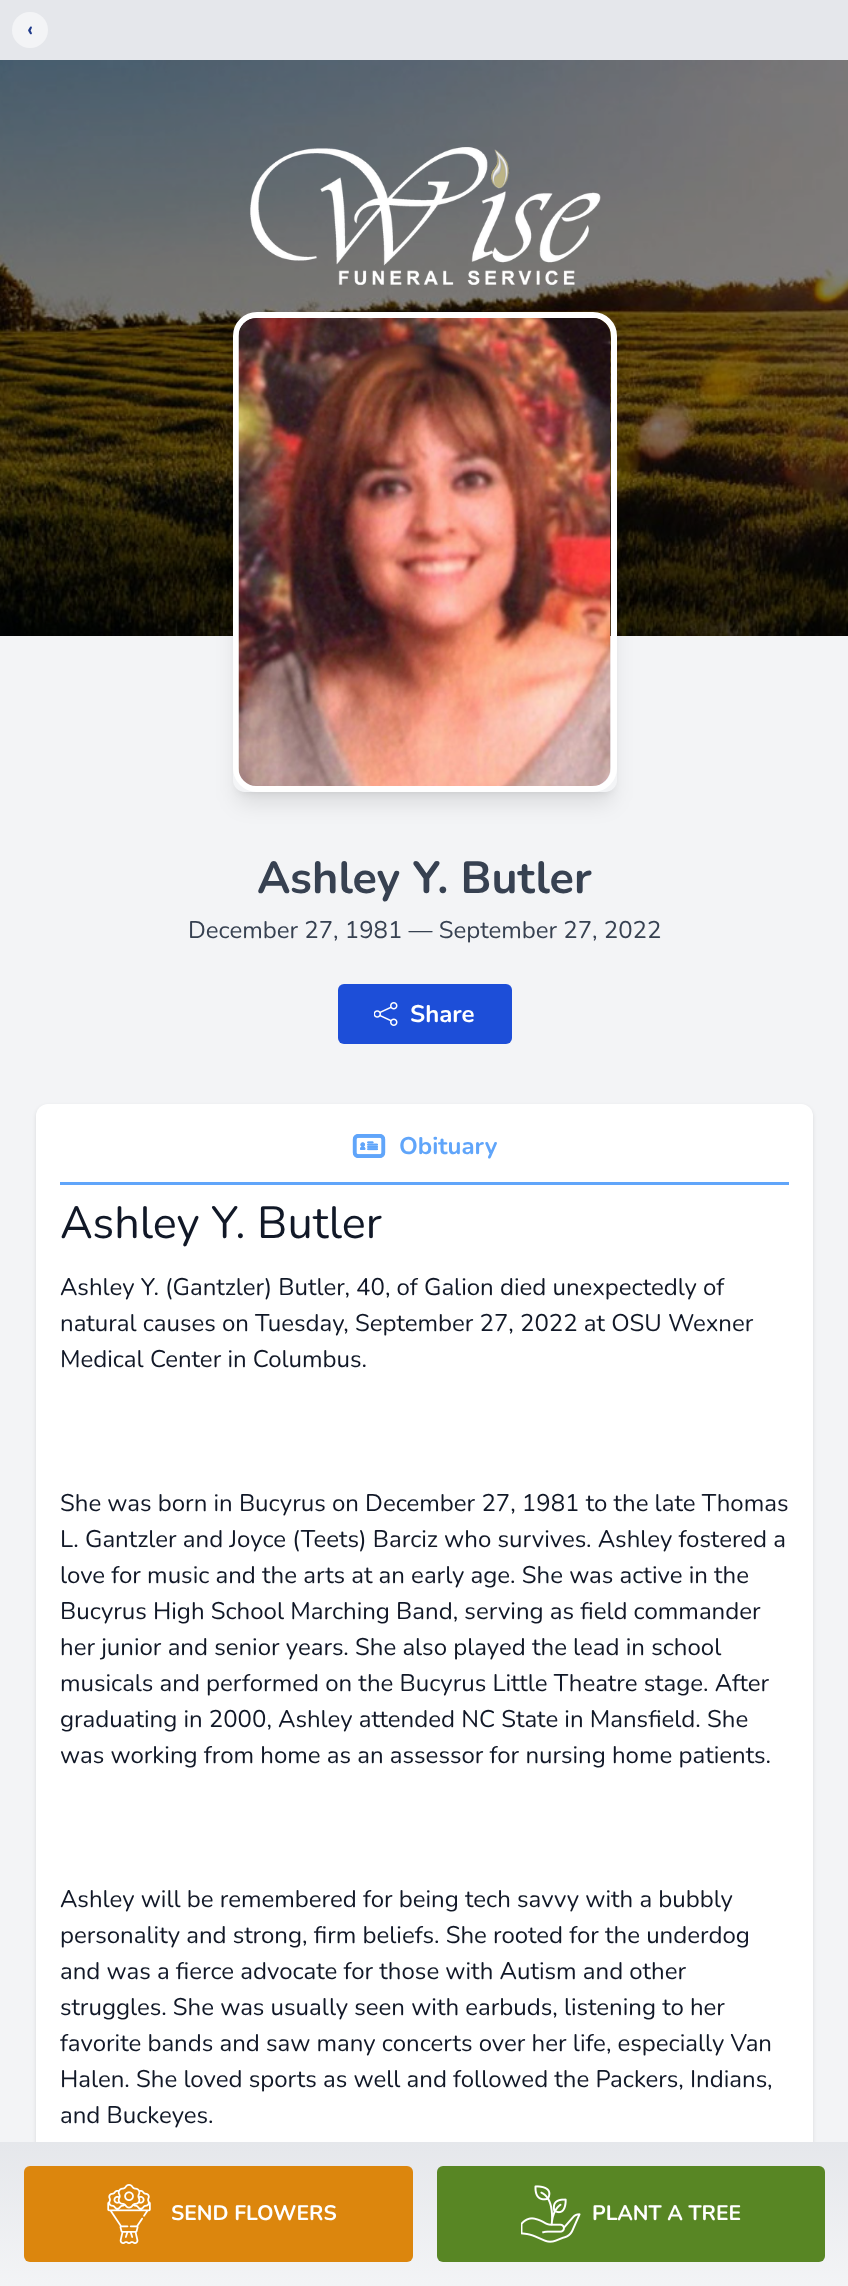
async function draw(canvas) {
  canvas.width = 848
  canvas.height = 2286
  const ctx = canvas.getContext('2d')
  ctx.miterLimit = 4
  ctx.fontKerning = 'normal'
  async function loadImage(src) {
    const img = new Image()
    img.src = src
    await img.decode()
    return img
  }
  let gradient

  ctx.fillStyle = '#f3f4f6'
  ctx.fillRect(0, 0, 848, 2286)
  ctx.fillStyle = '#e5e7eb'
  ctx.fillRect(0, 0, 848, 60)
  ctx.fillStyle = '#f3f4f6'
  ctx.beginPath()
  ctx.arc(30, 30, 18, 0, 2 * Math.PI)
  ctx.fill()
  ctx.font = 'bold 21px Nunito'
  ctx.fillStyle = '#1e3a8a'
  ctx.fillText('‹', 27, 36)
  ctx.drawImage(await loadImage('image0.png'), 0, 60, 848, 576)
  ctx.drawImage(await loadImage('image1.png'), 250, 147, 351, 138)
  ctx.save()
  ctx.beginPath()
  ctx.moveTo(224, 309)
  ctx.lineTo(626, 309)
  ctx.lineTo(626, 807)
  ctx.lineTo(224, 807)
  ctx.closePath()
  ctx.moveTo(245, 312)
  ctx.lineTo(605, 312)
  ctx.bezierCurveTo(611.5, 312, 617, 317.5, 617, 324)
  ctx.lineTo(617, 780)
  ctx.bezierCurveTo(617, 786.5, 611.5, 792, 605, 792)
  ctx.lineTo(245, 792)
  ctx.bezierCurveTo(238.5, 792, 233, 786.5, 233, 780)
  ctx.lineTo(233, 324)
  ctx.bezierCurveTo(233, 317.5, 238.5, 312, 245, 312)
  ctx.closePath()
  ctx.clip('evenodd')
  ctx.fillStyle = '#0000001a'
  ctx.filter = 'blur(4.5px)'
  ctx.beginPath()
  ctx.roundRect(239, 324, 372, 468, 6)
  ctx.fill()
  ctx.filter = 'none'
  ctx.restore()
  ctx.save()
  ctx.beginPath()
  ctx.moveTo(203, 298)
  ctx.lineTo(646, 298)
  ctx.lineTo(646, 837)
  ctx.lineTo(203, 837)
  ctx.closePath()
  ctx.moveTo(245, 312)
  ctx.lineTo(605, 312)
  ctx.bezierCurveTo(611.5, 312, 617, 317.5, 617, 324)
  ctx.lineTo(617, 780)
  ctx.bezierCurveTo(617, 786.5, 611.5, 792, 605, 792)
  ctx.lineTo(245, 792)
  ctx.bezierCurveTo(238.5, 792, 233, 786.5, 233, 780)
  ctx.lineTo(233, 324)
  ctx.bezierCurveTo(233, 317.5, 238.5, 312, 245, 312)
  ctx.closePath()
  ctx.clip('evenodd')
  ctx.fillStyle = '#0000001a'
  ctx.filter = 'blur(11px)'
  ctx.beginPath()
  ctx.roundRect(237, 332, 375, 471, 8)
  ctx.fill()
  ctx.filter = 'none'
  ctx.restore()
  ctx.beginPath()
  ctx.roundRect(236, 315, 378, 474, 21)
  ctx.strokeStyle = '#fff'
  ctx.lineWidth = 6
  ctx.stroke()
  ctx.drawImage(await loadImage('image2.png'), 238, 318, 373, 468)
  ctx.font = 'bold 45px Nunito'
  ctx.fillStyle = '#374151'
  ctx.fillText('Ashley Y. Butler', 257, 893)
  ctx.font = '24px Nunito'
  ctx.fillText('December 27, 1981 — September 27, 2022', 188, 938)
  ctx.fillStyle = '#1d4ed8'
  ctx.beginPath()
  ctx.roundRect(338, 984, 174, 60, 6)
  ctx.fill()
  ctx.drawImage(await loadImage('image3.png'), 374, 1002, 24, 24)
  ctx.font = 'bold 24px Nunito'
  ctx.fillStyle = '#fff'
  ctx.fillText('Share', 410, 1022)
  ctx.fillStyle = '#0000001a'
  ctx.filter = 'blur(2px)'
  ctx.beginPath()
  ctx.roundRect(36, 1106, 777, 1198, 12)
  ctx.fill()
  ctx.filter = 'none'
  ctx.fillStyle = '#fff'
  ctx.beginPath()
  ctx.roundRect(36, 1104, 777, 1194, 12)
  ctx.fill()
  ctx.fillStyle = '#60a5fa'
  ctx.fillRect(60, 1182, 729, 3)
  ctx.drawImage(await loadImage('image4.png'), 352, 1134, 34, 24)
  ctx.fillText('Obituary', 399, 1154)
  ctx.font = '45px Nunito'
  ctx.fillStyle = '#111827'
  ctx.fillText('Ashley Y. Butler', 60, 1238)
  ctx.font = '24px Nunito'
  ctx.fillText('Ashley Y. (Gantzler) Butler, 40, of Galion died unexpectedly of', 60, 1295)
  ctx.fillText('natural causes on Tuesday, September 27, 2022 at OSU Wexner', 60, 1331)
  ctx.fillText('Medical Center in Columbus.', 60, 1367)
  ctx.fillText('She was born in Bucyrus on December 27, 1981 to the late Thomas', 60, 1511)
  ctx.fillText('L. Gantzler and Joyce (Teets) Barciz who survives. Ashley fostered a', 60, 1547)
  ctx.fillText('love for music and the arts at an early age. She was active in the', 60, 1583)
  ctx.fillText('Bucyrus High School Marching Band, serving as field commander', 60, 1619)
  ctx.fillText('her junior and senior years. She also played the lead in school', 60, 1655)
  ctx.fillText('musicals and performed on the Bucyrus Little Theatre stage. After', 60, 1691)
  ctx.fillText('graduating in 2000, Ashley attended NC State in Mansfield. She', 60, 1727)
  ctx.fillText('was working from home as an assessor for nursing home patients.', 60, 1763)
  ctx.fillText('Ashley will be remembered for being tech savvy with a bubbly', 60, 1907)
  ctx.fillText('personality and strong, firm beliefs. She rooted for the underdog', 60, 1943)
  ctx.fillText('and was a fierce advocate for those with Autism and other', 60, 1979)
  ctx.fillText('struggles. She was usually seen with earbuds, listening to her', 60, 2015)
  ctx.fillText('favorite bands and saw many concerts over her life, especially Van', 60, 2051)
  ctx.fillText('Halen. She loved sports as well and followed the Packers, Indians,', 60, 2087)
  ctx.fillText('and Buckeyes.', 60, 2123)
  gradient = ctx.createLinearGradient(425, 2142, 425, 2286)
  gradient.addColorStop(0, '#e5e7eb')
  gradient.addColorStop(1, '#f3f4f6')
  ctx.fillStyle = gradient
  ctx.fillRect(0, 2142, 848, 144)
  ctx.fillStyle = '#dc860d'
  ctx.beginPath()
  ctx.roundRect(24, 2166, 389, 96, 6)
  ctx.fill()
  ctx.drawImage(await loadImage('image5.png'), 107, 2184, 44, 60)
  ctx.font = 'bold 21px Nunito'
  ctx.fillStyle = '#fff'
  ctx.fillText('SEND FLOWERS', 171, 2220)
  ctx.fillStyle = '#588624'
  ctx.beginPath()
  ctx.roundRect(437, 2166, 388, 96, 6)
  ctx.fill()
  ctx.drawImage(await loadImage('image6.png'), 521, 2185, 60, 58)
  ctx.fillStyle = '#fff'
  ctx.fillText('PLANT A TREE', 592, 2220)
}

draw(document.querySelector('canvas'))
